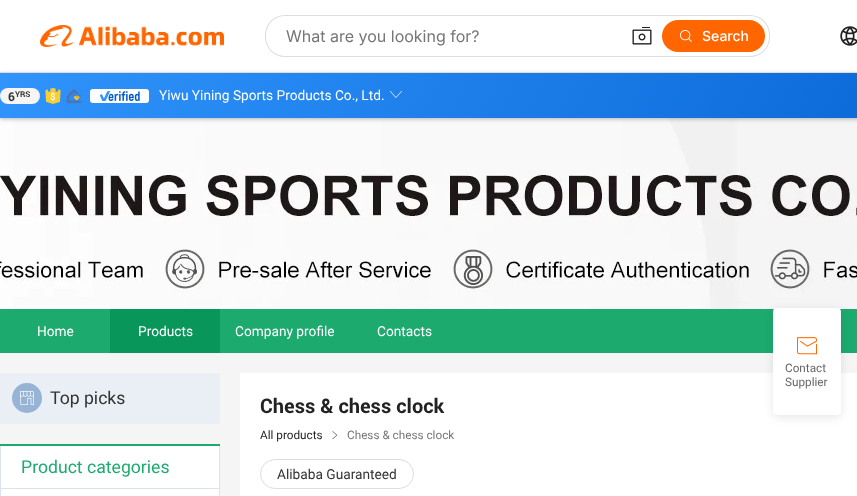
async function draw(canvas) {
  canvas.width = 857
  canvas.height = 496
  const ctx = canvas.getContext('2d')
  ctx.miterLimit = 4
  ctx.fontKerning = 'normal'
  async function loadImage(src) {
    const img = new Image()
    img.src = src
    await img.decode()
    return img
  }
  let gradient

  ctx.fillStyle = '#fff'
  ctx.fillRect(0, 0, 857, 496)
  ctx.drawImage(await loadImage('image8.png'), 0, 118, 857, 191)
  ctx.fillStyle = '#00000047'
  ctx.filter = 'blur(2px)'
  ctx.beginPath()
  ctx.rect(0, 74, 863, 45)
  ctx.fill()
  ctx.filter = 'none'
  ctx.fillStyle = '#ddd'
  ctx.fillRect(0, 72, 857, 1)
  ctx.drawImage(await loadImage('image0.png'), 40, 25, 184, 22)
  ctx.beginPath()
  ctx.roundRect(265, 15, 505, 42, 20)
  ctx.fill()
  ctx.fillStyle = '#fff'
  ctx.beginPath()
  ctx.roundRect(266, 16, 503, 40, 19)
  ctx.fill()
  ctx.font = '16px Inter'
  ctx.fillStyle = '#767676'
  ctx.fillText('What are you looking for?', 286, 42)
  ctx.drawImage(await loadImage('image1.png'), 632, 27, 20, 18)
  ctx.fillStyle = '#f60'
  ctx.beginPath()
  ctx.roundRect(662, 20, 103, 32, 16)
  ctx.fill()
  ctx.drawImage(await loadImage('image2.png'), 680, 30, 12, 12)
  ctx.font = '500 14px Inter'
  ctx.fillStyle = '#fff'
  ctx.fillText('Search', 702, 41)
  ctx.drawImage(await loadImage('image3.png'), 840, 26, 17, 20)
  gradient = ctx.createLinearGradient(123, -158, 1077, 349)
  gradient.addColorStop(0, '#3094fc')
  gradient.addColorStop(1, '#005ccc')
  ctx.fillStyle = gradient
  ctx.fillRect(0, 73, 857, 45)
  ctx.fillStyle = '#f5f5f5'
  ctx.beginPath()
  ctx.roundRect(0, 88, 40, 16, 8)
  ctx.fill()
  ctx.font = 'bold 12px Roboto'
  ctx.fillStyle = '#333'
  ctx.fillText('6', 8, 101)
  ctx.font = 'bold 8px Roboto'
  ctx.fillText('YRS', 15, 97)
  ctx.drawImage(await loadImage('image4.png'), 45, 88, 16, 16)
  ctx.drawImage(await loadImage('image5.png'), 66, 89, 16, 15)
  ctx.fillStyle = '#fff'
  ctx.beginPath()
  ctx.roundRect(90, 89, 59, 14, 3)
  ctx.fill()
  ctx.drawImage(await loadImage('image6.png'), 100, 91, 40, 10)
  ctx.font = '14px Roboto'
  ctx.fillText('Yiwu Yining Sports Products Co., Ltd.', 159, 100)
  ctx.drawImage(await loadImage('image7.png'), 390, 91, 12, 7)
  ctx.fillStyle = '#1daa6f'
  ctx.fillRect(0, 309, 857, 44)
  ctx.fillStyle = '#fff'
  ctx.fillText('Home', 37, 336)
  ctx.fillStyle = '#09965b'
  ctx.fillRect(110, 309, 110, 44)
  ctx.fillStyle = '#fff'
  ctx.fillText('Products', 138, 336)
  ctx.fillText('Company profile', 235, 336)
  ctx.fillText('Contacts', 377, 336)
  ctx.fillStyle = '#f5f5f5'
  ctx.fillRect(0, 353, 857, 143)
  ctx.fillStyle = '#e9eff5'
  ctx.fillRect(0, 373, 220, 51)
  ctx.fillStyle = '#97b3d5'
  ctx.beginPath()
  ctx.arc(27, 398, 15, 0, 2 * Math.PI)
  ctx.fill()
  ctx.drawImage(await loadImage('image9.png'), 20, 391, 14, 14)
  ctx.font = '18px Roboto'
  ctx.fillStyle = '#333'
  ctx.fillText('Top picks', 50, 404)
  ctx.fillStyle = '#fff'
  ctx.fillRect(1, 446, 218, 50)
  ctx.fillStyle = '#1daa6f'
  ctx.fillRect(0, 444, 220, 2)
  ctx.fillStyle = '#dbe3ef'
  ctx.fillRect(219, 446, 1, 50)
  ctx.fillRect(0, 446, 1, 50)
  ctx.fillRect(1, 488, 218, 1)
  ctx.fillStyle = '#1daa6f'
  ctx.fillText('Product categories', 21, 473)
  ctx.fillStyle = '#fff'
  ctx.fillRect(240, 373, 617, 123)
  ctx.font = 'bold 20px Roboto'
  ctx.fillStyle = '#222'
  ctx.fillText('Chess & chess clock', 260, 413)
  ctx.font = '12px Roboto'
  ctx.fillText('All products', 260, 439)
  ctx.drawImage(await loadImage('image10.png'), 332, 431, 6, 9)
  ctx.fillStyle = '#767676'
  ctx.fillText('Chess & chess clock', 347, 439)
  ctx.beginPath()
  ctx.roundRect(260.5, 459.5, 153, 29, 14.5)
  ctx.strokeStyle = '#ddd'
  ctx.stroke()
  ctx.font = '14px Roboto'
  ctx.fillStyle = '#333'
  ctx.fillText('Alibaba Guaranteed', 277, 479)
  ctx.fillStyle = '#0000001a'
  ctx.filter = 'blur(5px)'
  ctx.beginPath()
  ctx.roundRect(773, 310, 68, 107, 4)
  ctx.fill()
  ctx.filter = 'none'
  ctx.fillStyle = '#fff'
  ctx.beginPath()
  ctx.roundRect(773, 308, 68, 107, 4)
  ctx.fill()
  ctx.drawImage(await loadImage('image11.png'), 797, 337, 20, 18)
  ctx.font = '12px Roboto'
  ctx.fillStyle = '#666'
  ctx.fillText('Contact', 785, 372)
  ctx.fillText('Supplier', 785, 386)
}

draw(document.querySelector('canvas'))
